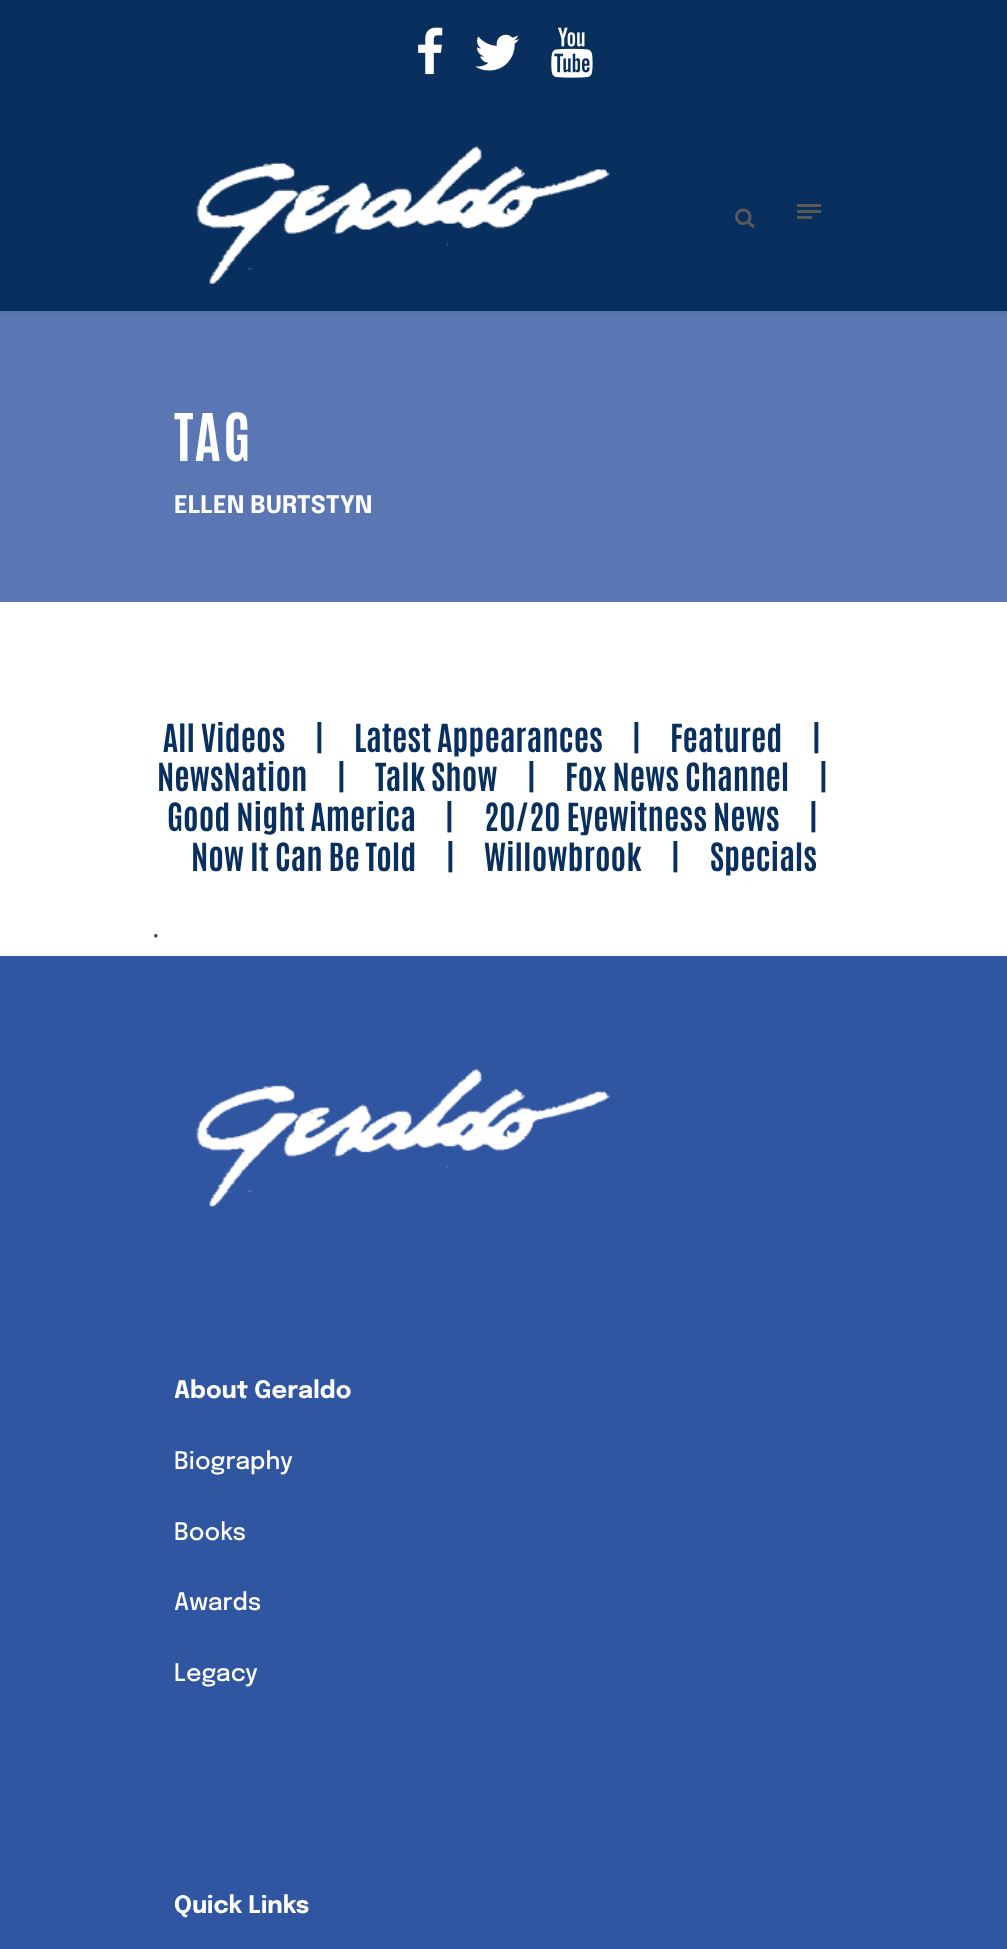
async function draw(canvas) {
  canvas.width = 1007
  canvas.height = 1949
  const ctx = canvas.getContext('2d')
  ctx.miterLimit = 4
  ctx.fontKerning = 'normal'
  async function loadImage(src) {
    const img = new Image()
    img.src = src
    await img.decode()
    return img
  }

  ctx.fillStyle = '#fff'
  ctx.fillRect(0, 0, 1007, 1949)
  ctx.fillStyle = '#082f5e'
  ctx.fillRect(0, 0, 1007, 116)
  ctx.drawImage(await loadImage('image0.png'), 418, 27, 25, 48)
  ctx.drawImage(await loadImage('image1.png'), 475, 34, 44, 37)
  ctx.drawImage(await loadImage('image2.png'), 551, 27, 42, 51)
  ctx.fillStyle = '#5a77b4'
  ctx.fillRect(0, 311, 1007, 291)
  ctx.fillStyle = '#0000001a'
  ctx.filter = 'blur(1.5px)'
  ctx.beginPath()
  ctx.rect(0, 117, 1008, 195)
  ctx.fill()
  ctx.filter = 'none'
  ctx.fillStyle = '#082f5e'
  ctx.fillRect(0, 116, 1007, 195)
  ctx.drawImage(await loadImage('image3.png'), 195, 146, 415, 138)
  ctx.drawImage(await loadImage('image4.png'), 735, 208, 20, 20)
  ctx.fillStyle = '#595959'
  ctx.fillRect(797, 204, 24, 3)
  ctx.fillRect(797, 210, 24, 3)
  ctx.fillRect(797, 216, 15, 3)
  ctx.letterSpacing = '3px'
  ctx.font = 'bold 56px Antonio'
  ctx.fillStyle = '#fff'
  ctx.fillText('TAG', 174, 461)
  ctx.letterSpacing = '0px'
  ctx.font = 'bold 24px Epilogue'
  ctx.fillText('ELLEN BURTSTYN', 174, 513)
  ctx.font = 'bold 33px Antonio'
  ctx.fillStyle = '#082f5e'
  ctx.fillText('All Videos', 163, 752)
  ctx.fillText('|', 315, 752)
  ctx.fillText('Latest Appearances', 354, 752)
  ctx.fillText('|', 632, 752)
  ctx.fillText('Featured', 670, 752)
  ctx.fillText('|', 812, 752)
  ctx.fillText('NewsNation', 157, 791)
  ctx.fillText('|', 337, 791)
  ctx.fillText('Talk Show', 375, 791)
  ctx.fillText('|', 527, 791)
  ctx.fillText('Fox News Channel', 565, 791)
  ctx.fillText('|', 819, 791)
  ctx.fillText('Good Night America', 167, 831)
  ctx.fillText('|', 445, 831)
  ctx.fillText('20/20 Eyewitness News', 484, 831)
  ctx.fillText('|', 809, 831)
  ctx.fillText('Now It Can Be Told', 191, 871)
  ctx.fillText('|', 446, 871)
  ctx.fillText('Willowbrook', 484, 871)
  ctx.fillText('|', 671, 871)
  ctx.fillText('Specials', 710, 871)
  ctx.font = '30px Epilogue'
  ctx.fillStyle = '#3f4048'
  ctx.fillText('.', 152, 937)
  ctx.fillStyle = '#3055a1'
  ctx.fillRect(0, 956, 1007, 993)
  ctx.drawImage(await loadImage('image5.png'), 195, 1068, 415, 139)
  ctx.font = 'bold 24px Epilogue'
  ctx.fillStyle = '#fff'
  ctx.fillText('About Geraldo', 174, 1398)
  ctx.font = '500 24px Epilogue'
  ctx.fillText('Biography', 174, 1469)
  ctx.fillText('Books', 174, 1540)
  ctx.fillText('Awards', 174, 1610)
  ctx.fillText('Legacy', 174, 1681)
  ctx.font = 'bold 24px Epilogue'
  ctx.fillText('Quick Links', 174, 1913)
}

draw(document.querySelector('canvas'))
